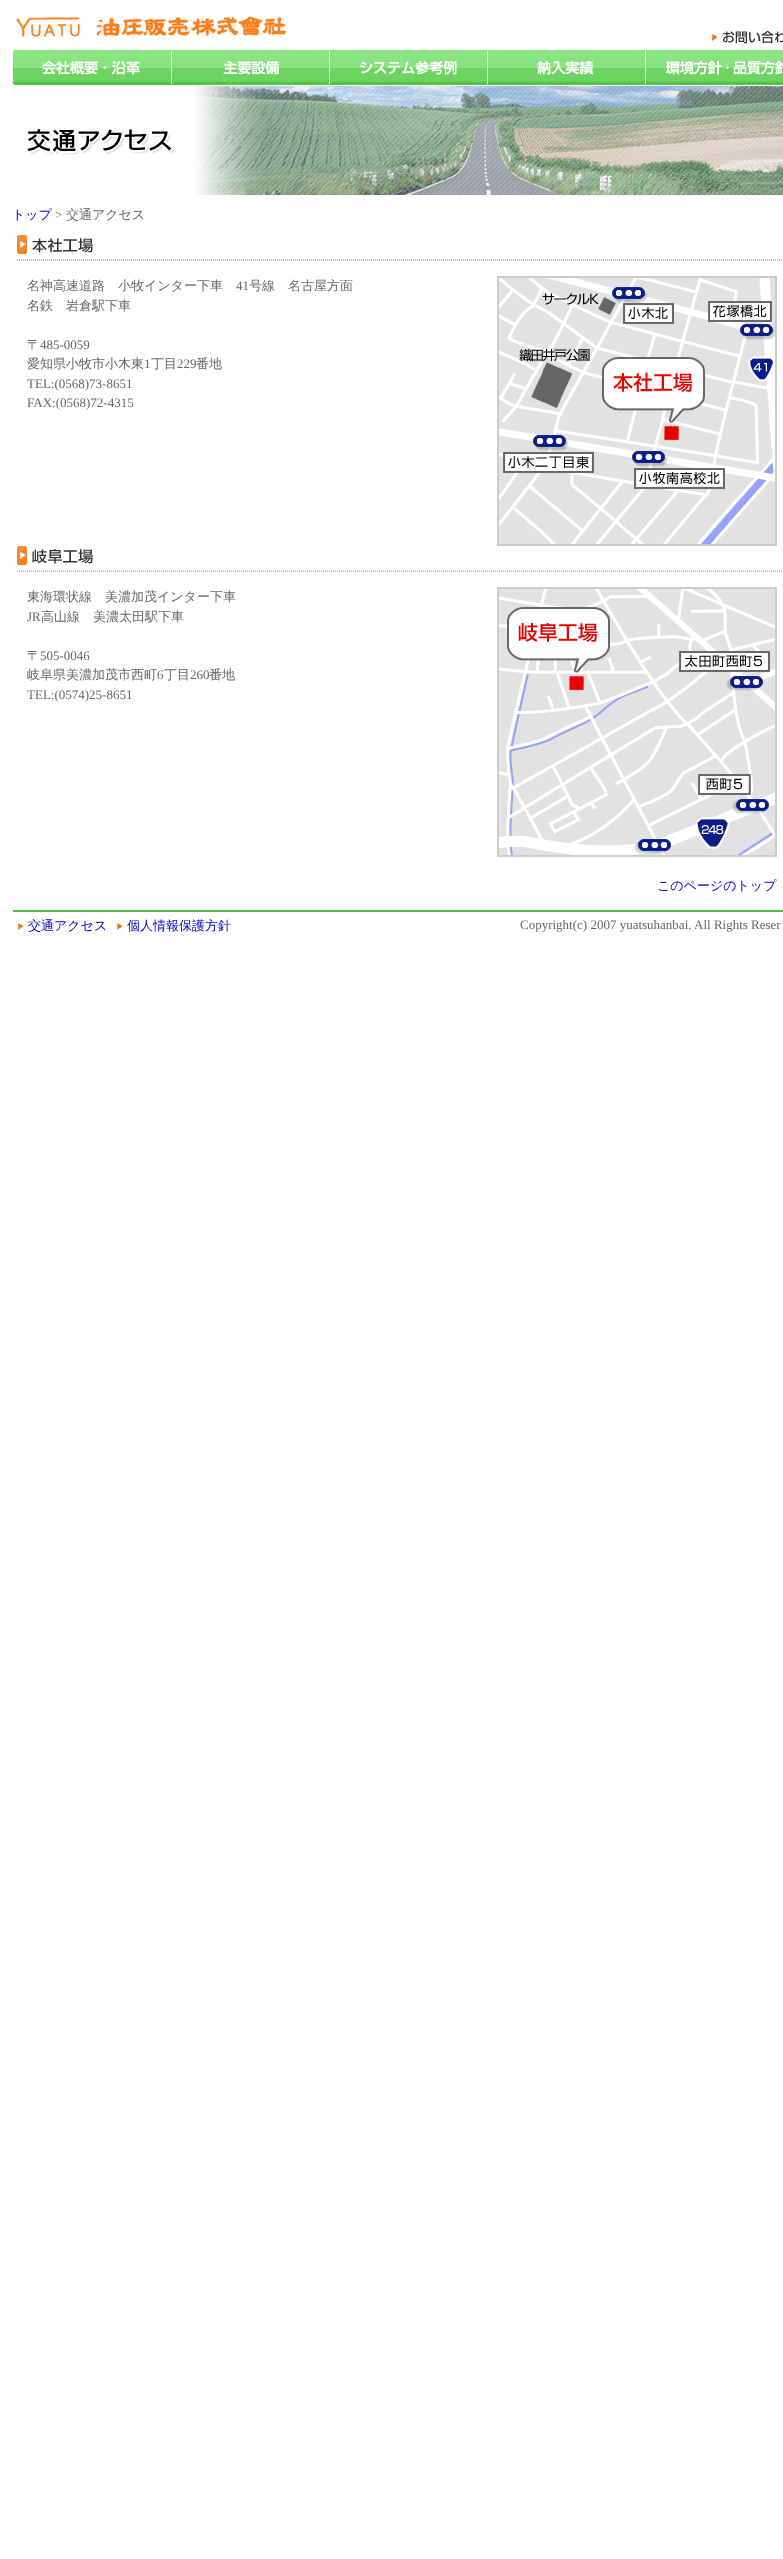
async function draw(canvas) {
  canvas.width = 783
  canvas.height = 2559
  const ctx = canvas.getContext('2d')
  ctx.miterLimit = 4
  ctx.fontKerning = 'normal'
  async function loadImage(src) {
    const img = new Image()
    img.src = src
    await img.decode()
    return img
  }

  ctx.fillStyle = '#fff'
  ctx.fillRect(0, 0, 783, 2559)
  ctx.drawImage(await loadImage('image0.png'), 16, 16, 270, 22)
  ctx.drawImage(await loadImage('image1.png'), 712, 31, 71, 13)
  ctx.drawImage(await loadImage('image2.png'), 13, 50, 158, 35)
  ctx.drawImage(await loadImage('image3.png'), 171, 50, 158, 35)
  ctx.drawImage(await loadImage('image4.png'), 329, 50, 158, 35)
  ctx.drawImage(await loadImage('image5.png'), 487, 50, 158, 35)
  ctx.drawImage(await loadImage('image6.png'), 645, 50, 138, 35)
  ctx.drawImage(await loadImage('image7.png'), 27, 86, 756, 109)
  ctx.font = '500 13px WenQuanYi Zen Hei'
  ctx.fillStyle = '#00c'
  ctx.fillText('トップ', 12, 219)
  ctx.font = '13px Liberation Serif'
  ctx.fillStyle = '#666'
  ctx.fillText('>', 55, 219)
  ctx.font = '500 13px WenQuanYi Zen Hei'
  ctx.fillText('交通アクセス', 66, 219)
  ctx.drawImage(await loadImage('image8.png'), 17, 235, 765, 26)
  ctx.fillText('名神高速道路　小牧インター下車', 27, 290)
  ctx.font = '13px Liberation Serif'
  ctx.fillText('41', 236, 290)
  ctx.font = '500 13px WenQuanYi Zen Hei'
  ctx.fillText('号線　名古屋方面', 249, 290)
  ctx.fillText('名鉄　岩倉駅下車', 27, 310)
  ctx.fillText('〒', 27, 349)
  ctx.font = '13px Liberation Serif'
  ctx.fillText('485-0059', 40, 349)
  ctx.font = '500 13px WenQuanYi Zen Hei'
  ctx.fillText('愛知県小牧市小木東', 27, 368)
  ctx.font = '13px Liberation Serif'
  ctx.fillText('1', 144, 368)
  ctx.font = '500 13px WenQuanYi Zen Hei'
  ctx.fillText('丁目', 151, 368)
  ctx.font = '13px Liberation Serif'
  ctx.fillText('229', 177, 368)
  ctx.font = '500 13px WenQuanYi Zen Hei'
  ctx.fillText('番地', 196, 368)
  ctx.font = '13px Liberation Serif'
  ctx.fillText('TEL:(0568)73-8651', 27, 388)
  ctx.fillText('FAX:(0568)72-4315', 27, 407)
  ctx.drawImage(await loadImage('image9.png'), 497, 276, 280, 270)
  ctx.drawImage(await loadImage('image10.png'), 17, 546, 765, 26)
  ctx.font = '500 13px WenQuanYi Zen Hei'
  ctx.fillText('東海環状線　美濃加茂インター下車', 27, 601)
  ctx.font = '13px Liberation Serif'
  ctx.fillText('JR', 27, 621)
  ctx.font = '500 13px WenQuanYi Zen Hei'
  ctx.fillText('高山線　美濃太田駅下車', 41, 621)
  ctx.fillText('〒', 27, 660)
  ctx.font = '13px Liberation Serif'
  ctx.fillText('505-0046', 40, 660)
  ctx.font = '500 13px WenQuanYi Zen Hei'
  ctx.fillText('岐阜県美濃加茂市西町', 27, 679)
  ctx.font = '13px Liberation Serif'
  ctx.fillText('6', 157, 679)
  ctx.font = '500 13px WenQuanYi Zen Hei'
  ctx.fillText('丁目', 164, 679)
  ctx.font = '13px Liberation Serif'
  ctx.fillText('260', 190, 679)
  ctx.font = '500 13px WenQuanYi Zen Hei'
  ctx.fillText('番地', 209, 679)
  ctx.font = '13px Liberation Serif'
  ctx.fillText('TEL:(0574)25-8651', 27, 699)
  ctx.drawImage(await loadImage('image11.png'), 497, 587, 280, 270)
  ctx.font = '500 13px WenQuanYi Zen Hei'
  ctx.fillStyle = '#00c'
  ctx.fillText('このページのトップ', 657, 890)
  ctx.fillStyle = '#49bf3c'
  ctx.fillRect(13, 910, 770, 2)
  ctx.drawImage(await loadImage('image12.png'), 18, 923, 6, 7)
  ctx.fillStyle = '#00c'
  ctx.fillText('交通アクセス', 28, 930)
  ctx.drawImage(await loadImage('image12.png'), 117, 923, 6, 7)
  ctx.fillText('個人情報保護方針', 127, 930)
  ctx.font = '13px Liberation Serif'
  ctx.fillStyle = '#666'
  ctx.fillText('Copyright(c) 2007 yuatsuhanbai. All Rights Reser', 520, 929)
}

draw(document.querySelector('canvas'))
